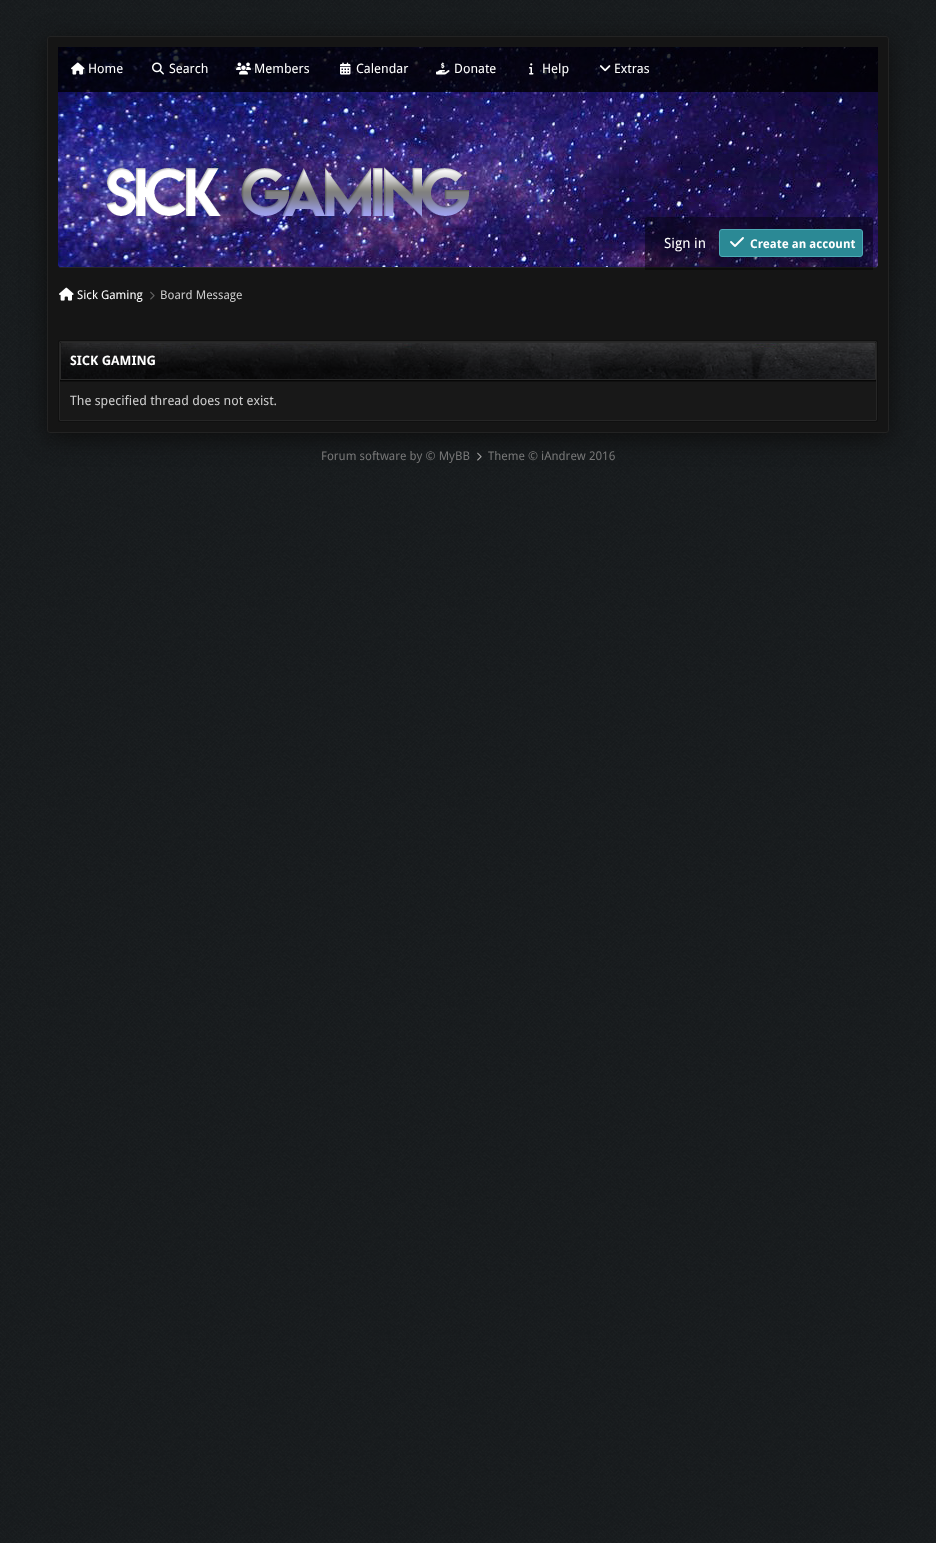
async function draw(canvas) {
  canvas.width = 936
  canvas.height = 1543
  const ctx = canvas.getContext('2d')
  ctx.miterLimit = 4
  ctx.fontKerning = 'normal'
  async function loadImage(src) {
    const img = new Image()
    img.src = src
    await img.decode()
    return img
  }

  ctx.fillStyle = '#fff'
  ctx.fillRect(0, 0, 936, 1543)
  ctx.drawImage(await loadImage('image0.png'), 0, 0, 936, 1543)
  ctx.drawImage(await loadImage('image14.png'), 477, 452, 5, 9)
  ctx.fillStyle = '#0d0d0d'
  ctx.filter = 'blur(12.5px)'
  ctx.beginPath()
  ctx.roundRect(47, 41, 842, 397, 3)
  ctx.fill()
  ctx.filter = 'none'
  ctx.fillStyle = '#151515'
  ctx.beginPath()
  ctx.roundRect(47.5, 36.5, 841, 396, 2.5)
  ctx.fill()
  ctx.strokeStyle = '#232323'
  ctx.stroke()
  ctx.drawImage(await loadImage('image8.png'), 58, 47, 820, 221)
  ctx.fillStyle = '#000000cc'
  ctx.fillRect(58, 47, 820, 45)
  ctx.drawImage(await loadImage('image1.png'), 71, 62, 14, 13)
  ctx.font = '13px Droid Sans'
  ctx.fillStyle = '#fff'
  ctx.fillText('Home', 88, 73)
  ctx.drawImage(await loadImage('image2.png'), 152, 62, 12, 13)
  ctx.fillText('Search', 169, 73)
  ctx.drawImage(await loadImage('image3.png'), 236, 62, 15, 13)
  ctx.fillText('Members', 254, 73)
  ctx.drawImage(await loadImage('image4.png'), 340, 62, 11, 13)
  ctx.fillText('Calendar', 356, 73)
  ctx.drawImage(await loadImage('image5.png'), 436, 62, 14, 13)
  ctx.fillText('Donate', 454, 73)
  ctx.drawImage(await loadImage('image6.png'), 529, 63, 5, 12)
  ctx.fillText('Help', 542, 73)
  ctx.drawImage(await loadImage('image7.png'), 600, 65, 11, 7)
  ctx.fillText('Extras', 614, 73)
  ctx.fillStyle = '#262626'
  ctx.fillRect(60, 267, 816, 1)
  ctx.drawImage(await loadImage('image9.png'), 106, 167, 363, 50)
  ctx.fillStyle = '#00000066'
  ctx.beginPath()
  ctx.roundRect(645, 217, 228, 53, [3, 3, 0, 0])
  ctx.fill()
  ctx.font = '14px Droid Sans'
  ctx.fillStyle = '#fff'
  ctx.fillText('Sign in', 664, 248)
  ctx.fillStyle = '#2b8995'
  ctx.beginPath()
  ctx.roundRect(719.5, 229.5, 143, 27, 2.5)
  ctx.fill()
  ctx.strokeStyle = '#4dabb7'
  ctx.stroke()
  ctx.drawImage(await loadImage('image10.png'), 730, 237, 14, 10)
  ctx.font = 'bold 12px Droid Sans'
  ctx.fillStyle = '#fff'
  ctx.fillText('Create an account', 750, 248)
  ctx.drawImage(await loadImage('image11.png'), 59, 287, 15, 14)
  ctx.font = '12px Droid Sans'
  ctx.fillText('Sick Gaming', 77, 299)
  ctx.drawImage(await loadImage('image12.png'), 150, 291, 5, 9)
  ctx.fillStyle = '#ccc'
  ctx.fillText('Board Message', 160, 299)
  ctx.fillStyle = '#181818'
  ctx.beginPath()
  ctx.roundRect(59.5, 341.5, 817, 79, 0.5)
  ctx.fill()
  ctx.strokeStyle = '#262626'
  ctx.stroke()
  ctx.beginPath()
  ctx.roundRect(58.5, 340.5, 819, 81, 1.5)
  ctx.strokeStyle = '#101010'
  ctx.stroke()
  ctx.drawImage(await loadImage('image13.png'), 60, 342, 816, 37)
  ctx.beginPath()
  ctx.roundRect(60.5, 342.5, 815, 37, [1.5, 1.5, 0, 0])
  ctx.strokeStyle = '#2a2a2a'
  ctx.stroke()
  ctx.fillStyle = '#070707'
  ctx.fillRect(60, 380, 816, 1)
  ctx.font = 'bold 13px Droid Sans'
  ctx.fillStyle = '#fff'
  ctx.fillText('SICK GAMING', 70, 365)
  ctx.fillStyle = '#101010'
  ctx.fillRect(60, 381, 816, 1)
  ctx.font = '13px Droid Sans'
  ctx.fillStyle = '#ccc'
  ctx.fillText('The specified thread does not exist.', 70, 405)
  ctx.font = '12px Droid Sans'
  ctx.fillStyle = '#777'
  ctx.fillText('Forum software by © MyBB', 321, 460)
  ctx.fillText('Theme © iAndrew 2016', 488, 460)
}

draw(document.querySelector('canvas'))
